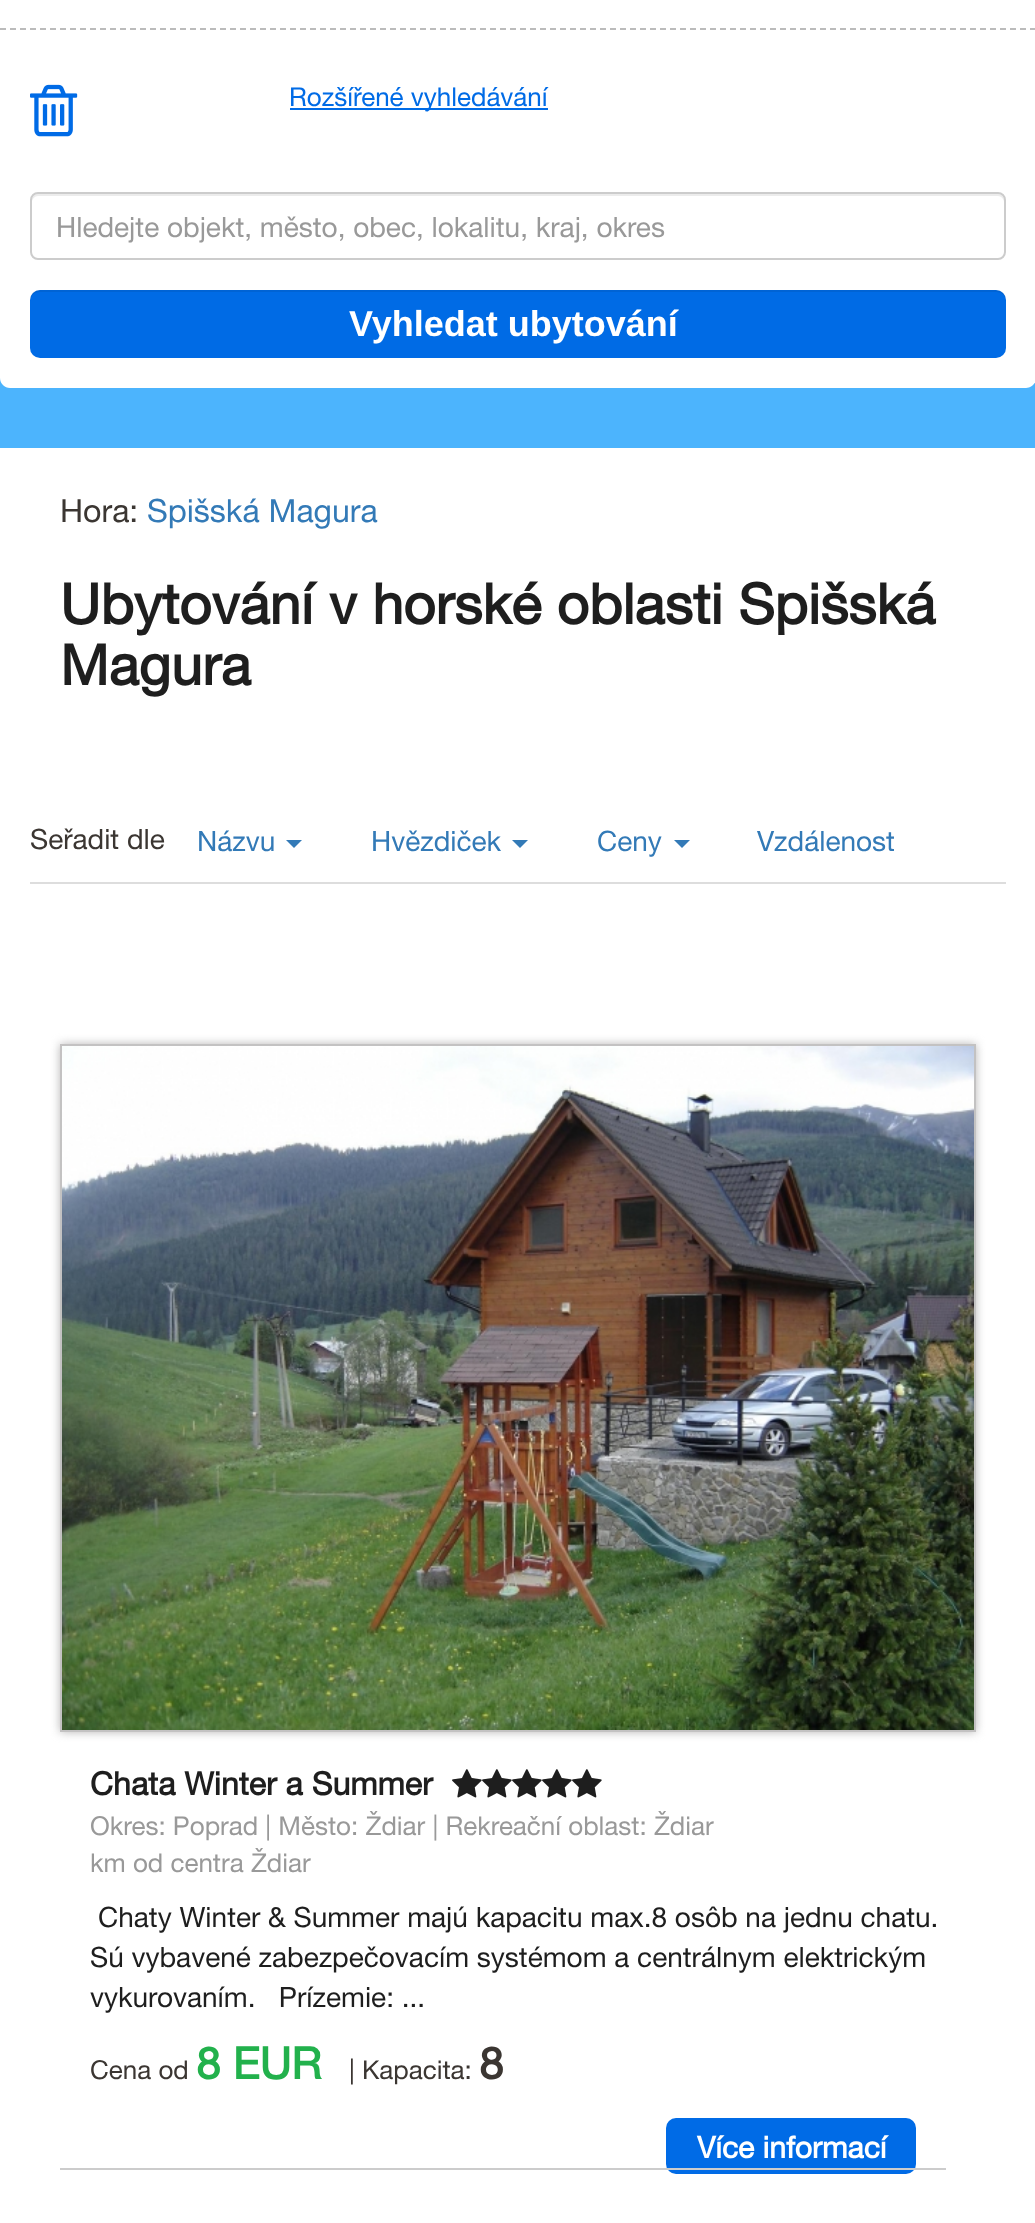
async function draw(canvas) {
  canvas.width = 1035
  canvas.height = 2223
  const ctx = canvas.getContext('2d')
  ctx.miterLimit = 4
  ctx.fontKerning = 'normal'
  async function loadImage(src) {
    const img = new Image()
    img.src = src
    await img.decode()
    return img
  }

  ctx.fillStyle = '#fff'
  ctx.fillRect(0, 0, 1035, 2223)
  ctx.fillStyle = '#4cb4fd'
  ctx.fillRect(0, 378, 1035, 70)
  ctx.beginPath()
  ctx.moveTo(0, 29)
  ctx.lineTo(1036, 29)
  ctx.strokeStyle = '#bbb'
  ctx.lineWidth = 2
  ctx.setLineDash([6, 4])
  ctx.stroke()
  ctx.drawImage(await loadImage('image0.png'), 30, 84, 48, 53)
  ctx.fillStyle = '#006be6'
  ctx.fillRect(290, 108, 258, 2)
  ctx.font = '26px Helvetica Neue'
  ctx.fillText('Rozšířené vyhledávání', 289, 106)
  ctx.fillStyle = '#fff'
  ctx.beginPath()
  ctx.moveTo(0, 172)
  ctx.lineTo(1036, 172)
  ctx.lineTo(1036, 378)
  ctx.bezierCurveTo(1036, 383.5, 1031.5, 388, 1026, 388)
  ctx.lineTo(10, 388)
  ctx.bezierCurveTo(4.5, 388, 0, 383.5, 0, 378)
  ctx.closePath()
  ctx.fill()
  ctx.fillStyle = '#ececec'
  ctx.beginPath()
  ctx.moveTo(38, 196)
  ctx.lineTo(998, 196)
  ctx.bezierCurveTo(1001, 196, 1004, 199, 1004, 202)
  ctx.lineTo(1004, 200)
  ctx.bezierCurveTo(1004, 197, 1001, 194, 998, 194)
  ctx.lineTo(38, 194)
  ctx.bezierCurveTo(35, 194, 32, 197, 32, 200)
  ctx.lineTo(32, 202)
  ctx.bezierCurveTo(32, 199, 35, 196, 38, 196)
  ctx.closePath()
  ctx.fill()
  ctx.beginPath()
  ctx.roundRect(31, 193, 974, 66, 7)
  ctx.strokeStyle = '#ccc'
  ctx.setLineDash([])
  ctx.stroke()
  ctx.font = '28px Helvetica Neue'
  ctx.fillStyle = '#999'
  ctx.fillText('Hledejte objekt, město, obec, lokalitu, kraj, okres', 56, 237)
  ctx.fillStyle = '#006be5'
  ctx.beginPath()
  ctx.roundRect(30, 290, 976, 68, 10)
  ctx.fill()
  ctx.fillStyle = '#00000012'
  ctx.beginPath()
  ctx.moveTo(40, 292)
  ctx.lineTo(996, 292)
  ctx.bezierCurveTo(1002, 292, 1006, 296, 1006, 302)
  ctx.lineTo(1006, 300)
  ctx.bezierCurveTo(1006, 294, 1002, 290, 996, 290)
  ctx.lineTo(40, 290)
  ctx.bezierCurveTo(34, 290, 30, 294, 30, 300)
  ctx.lineTo(30, 302)
  ctx.bezierCurveTo(30, 296, 34, 292, 40, 292)
  ctx.closePath()
  ctx.fill()
  ctx.font = 'bold 36px Liberation Sans'
  ctx.fillStyle = '#fff'
  ctx.fillText('Vyhledat ubytování', 349, 336)
  ctx.font = '32px Helvetica Neue'
  ctx.fillStyle = '#3b3632'
  ctx.fillText('Hora:', 60, 522)
  ctx.fillStyle = '#337ab7'
  ctx.fillText('Spišská Magura', 147, 522)
  ctx.font = 'bold 56px Helvetica Neue'
  ctx.fillStyle = '#1e1e1e'
  ctx.fillText('Ubytování v horské oblasti Spišská', 60, 624)
  ctx.fillText('Magura', 60, 685)
  ctx.fillStyle = '#ddd'
  ctx.fillRect(30, 882, 976, 2)
  ctx.font = '28px Helvetica Neue'
  ctx.fillStyle = '#3b3632'
  ctx.fillText('Seřadit dle', 30, 849)
  ctx.fillStyle = '#337ab7'
  ctx.fillText('Názvu', 197, 851)
  ctx.beginPath()
  ctx.moveTo(286, 840)
  ctx.lineTo(302, 840)
  ctx.lineTo(294, 848)
  ctx.closePath()
  ctx.fill()
  ctx.fillText('Hvězdiček', 371, 851)
  ctx.beginPath()
  ctx.moveTo(512, 840)
  ctx.lineTo(528, 840)
  ctx.lineTo(520, 848)
  ctx.closePath()
  ctx.fill()
  ctx.fillText('Ceny', 597, 851)
  ctx.beginPath()
  ctx.moveTo(674, 840)
  ctx.lineTo(690, 840)
  ctx.lineTo(682, 848)
  ctx.closePath()
  ctx.fill()
  ctx.fillText('Vzdálenost', 757, 851)
  ctx.fillStyle = '#b7b6b6'
  ctx.filter = 'blur(5px)'
  ctx.beginPath()
  ctx.rect(60, 1044, 916, 688)
  ctx.fill()
  ctx.filter = 'none'
  ctx.strokeStyle = '#c3c2c2'
  ctx.strokeRect(61, 1045, 914, 686)
  ctx.drawImage(await loadImage('image1.png'), 62, 1046, 912, 684)
  ctx.font = 'bold 32px Helvetica Neue'
  ctx.fillStyle = '#1e1e1e'
  ctx.fillText('Chata Winter a Summer', 90, 1795)
  ctx.drawImage(await loadImage('image2.png'), 452, 1769, 30, 29)
  ctx.drawImage(await loadImage('image2.png'), 482, 1769, 30, 29)
  ctx.drawImage(await loadImage('image2.png'), 512, 1769, 30, 29)
  ctx.drawImage(await loadImage('image2.png'), 542, 1769, 30, 29)
  ctx.drawImage(await loadImage('image2.png'), 572, 1769, 30, 29)
  ctx.font = '26px Helvetica Neue'
  ctx.fillStyle = '#999'
  ctx.fillText('Okres: Poprad | Město: Ždiar | Rekreační oblast: Ždiar', 90, 1835)
  ctx.fillText('km od centra Ždiar', 90, 1872)
  ctx.font = '28px Helvetica Neue'
  ctx.fillStyle = '#1e1e1e'
  ctx.fillText('Chaty Winter & Summer majú kapacitu max.8 osôb na jednu chatu.', 98, 1927)
  ctx.fillText('Sú vybavené zabezpečovacím systémom a centrálnym elektrickým', 90, 1967)
  ctx.fillText('vykurovaním.   Prízemie: ...', 90, 2007)
  ctx.font = '26px Helvetica Neue'
  ctx.fillStyle = '#3b3632'
  ctx.fillText('Cena od', 90, 2079)
  ctx.font = 'bold 44px Helvetica Neue'
  ctx.fillStyle = '#22b14c'
  ctx.fillText('8 EUR', 196, 2079)
  ctx.font = '26px Helvetica Neue'
  ctx.fillStyle = '#3b3632'
  ctx.fillText('| Kapacita:', 349, 2079)
  ctx.font = 'bold 44px Helvetica Neue'
  ctx.fillText('8', 479, 2079)
  ctx.fillStyle = '#006be6'
  ctx.beginPath()
  ctx.roundRect(666, 2118, 250, 56, 10)
  ctx.fill()
  ctx.font = 'bold 30px Helvetica Neue'
  ctx.fillStyle = '#fff'
  ctx.fillText('Více informací', 697, 2158)
  ctx.fillStyle = '#ccc'
  ctx.fillRect(60, 2168, 886, 2)
}

draw(document.querySelector('canvas'))
